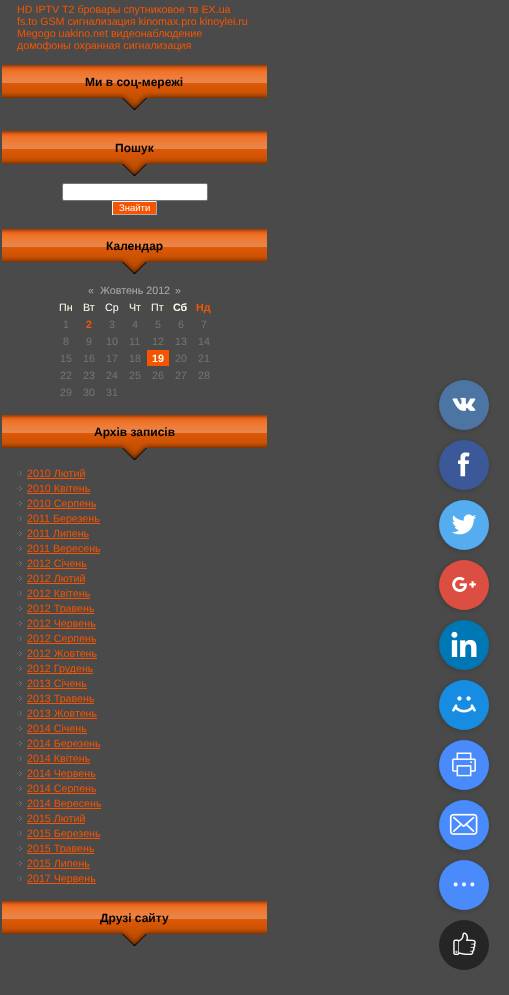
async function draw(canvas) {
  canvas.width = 509
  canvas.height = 995
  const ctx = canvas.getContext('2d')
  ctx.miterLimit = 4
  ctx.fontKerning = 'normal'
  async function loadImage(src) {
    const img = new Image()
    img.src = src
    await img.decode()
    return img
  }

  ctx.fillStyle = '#4a4a4a'
  ctx.fillRect(0, 0, 509, 995)
  ctx.font = '10.7px Liberation Sans'
  ctx.fillStyle = '#f65400'
  ctx.fillText('HD IPTV T2 бровары спутниковое тв EX.ua', 17, 13)
  ctx.fillText('fs.to GSM сигнализация kinomax.pro kinoylei.ru', 17, 25)
  ctx.fillText('Megogo uakino.net видеонаблюдение', 17, 37)
  ctx.fillText('домофоны охранная сигнализация', 17, 49)
  ctx.drawImage(await loadImage('image0.png'), 2, 65, 265, 45)
  ctx.font = 'bold 12px Liberation Sans'
  ctx.fillStyle = '#000'
  ctx.fillText('Ми в соц-мережі', 85, 86)
  ctx.drawImage(await loadImage('image0.png'), 2, 131, 265, 45)
  ctx.fillText('Пошук', 115, 152)
  ctx.fillStyle = '#fff'
  ctx.beginPath()
  ctx.roundRect(62.5, 183.5, 145, 17, 1.5)
  ctx.fill()
  ctx.strokeStyle = '#767676'
  ctx.stroke()
  ctx.fillStyle = '#f65400'
  ctx.fillRect(113, 202, 43, 12)
  ctx.fillStyle = '#fff'
  ctx.fillRect(112, 201, 45, 1)
  ctx.fillStyle = '#aaa'
  ctx.fillRect(156, 201, 1, 14)
  ctx.fillRect(112, 214, 45, 1)
  ctx.fillStyle = '#fff'
  ctx.fillRect(112, 201, 1, 14)
  ctx.font = '9.5px Liberation Sans'
  ctx.fillText('Знайти', 119, 211)
  ctx.drawImage(await loadImage('image0.png'), 2, 229, 265, 45)
  ctx.font = 'bold 12px Liberation Sans'
  ctx.fillStyle = '#000'
  ctx.fillText('Календар', 106, 250)
  ctx.font = '10.7px Liberation Sans'
  ctx.fillStyle = '#adadad'
  ctx.fillText('«', 88, 294)
  ctx.fillText('Жовтень 2012', 100, 294)
  ctx.fillText('»', 175, 294)
  ctx.fillStyle = '#fdffed'
  ctx.fillText('Пн', 59, 311)
  ctx.fillText('Вт', 83, 311)
  ctx.fillText('Ср', 105, 311)
  ctx.fillText('Чт', 129, 311)
  ctx.fillText('Пт', 151, 311)
  ctx.font = 'bold 10.7px Liberation Sans'
  ctx.fillText('Сб', 173, 311)
  ctx.fillStyle = '#f65400'
  ctx.fillText('Нд', 196, 311)
  ctx.font = '10.7px Liberation Sans'
  ctx.fillStyle = '#757575'
  ctx.fillText('1', 63, 328)
  ctx.font = 'bold 10.7px Liberation Sans'
  ctx.fillStyle = '#f65400'
  ctx.fillText('2', 86, 328)
  ctx.font = '10.7px Liberation Sans'
  ctx.fillStyle = '#757575'
  ctx.fillText('3', 109, 328)
  ctx.fillText('4', 132, 328)
  ctx.fillText('5', 155, 328)
  ctx.fillText('6', 178, 328)
  ctx.fillText('7', 201, 328)
  ctx.fillText('8', 63, 345)
  ctx.fillText('9', 86, 345)
  ctx.fillText('10', 106, 345)
  ctx.fillText('11', 129, 345)
  ctx.fillText('12', 152, 345)
  ctx.fillText('13', 175, 345)
  ctx.fillText('14', 198, 345)
  ctx.fillText('15', 60, 362)
  ctx.fillText('16', 83, 362)
  ctx.fillText('17', 106, 362)
  ctx.fillText('18', 129, 362)
  ctx.fillStyle = '#f65400'
  ctx.fillRect(147, 350, 22, 16)
  ctx.font = 'bold 10.7px Liberation Sans'
  ctx.fillStyle = '#fdffed'
  ctx.fillText('19', 152, 362)
  ctx.font = '10.7px Liberation Sans'
  ctx.fillStyle = '#757575'
  ctx.fillText('20', 175, 362)
  ctx.fillText('21', 198, 362)
  ctx.fillText('22', 60, 379)
  ctx.fillText('23', 83, 379)
  ctx.fillText('24', 106, 379)
  ctx.fillText('25', 129, 379)
  ctx.fillText('26', 152, 379)
  ctx.fillText('27', 175, 379)
  ctx.fillText('28', 198, 379)
  ctx.fillText('29', 60, 396)
  ctx.fillText('30', 83, 396)
  ctx.fillText('31', 106, 396)
  ctx.drawImage(await loadImage('image0.png'), 2, 415, 265, 45)
  ctx.font = 'bold 12px Liberation Sans'
  ctx.fillStyle = '#000'
  ctx.fillText('Архів записів', 94, 436)
  ctx.drawImage(await loadImage('image1.png'), 17, 471, 5, 5)
  ctx.font = '10.7px Liberation Sans'
  ctx.fillStyle = '#f65400'
  ctx.fillText('2010 Лютий', 27, 477)
  ctx.fillRect(27, 478, 58, 1)
  ctx.drawImage(await loadImage('image1.png'), 17, 486, 5, 5)
  ctx.fillText('2010 Квітень', 27, 492)
  ctx.fillRect(27, 493, 63, 1)
  ctx.drawImage(await loadImage('image1.png'), 17, 501, 5, 5)
  ctx.fillRect(27, 508, 69, 1)
  ctx.fillText('2010 Серпень', 27, 507)
  ctx.drawImage(await loadImage('image1.png'), 17, 516, 5, 5)
  ctx.fillRect(27, 523, 73, 1)
  ctx.fillText('2011 Березень', 27, 522)
  ctx.drawImage(await loadImage('image1.png'), 17, 531, 5, 5)
  ctx.fillText('2011 Липень', 27, 537)
  ctx.fillRect(27, 538, 62, 1)
  ctx.drawImage(await loadImage('image1.png'), 17, 546, 5, 5)
  ctx.fillRect(27, 553, 73, 1)
  ctx.fillText('2011 Вересень', 27, 552)
  ctx.drawImage(await loadImage('image1.png'), 17, 561, 5, 5)
  ctx.fillText('2012 Січень', 27, 567)
  ctx.fillRect(27, 568, 60, 1)
  ctx.drawImage(await loadImage('image1.png'), 17, 576, 5, 5)
  ctx.fillText('2012 Лютий', 27, 582)
  ctx.fillRect(27, 583, 58, 1)
  ctx.drawImage(await loadImage('image1.png'), 17, 591, 5, 5)
  ctx.fillText('2012 Квітень', 27, 597)
  ctx.fillRect(27, 598, 63, 1)
  ctx.drawImage(await loadImage('image1.png'), 17, 606, 5, 5)
  ctx.fillRect(27, 613, 67, 1)
  ctx.fillText('2012 Травень', 27, 612)
  ctx.drawImage(await loadImage('image1.png'), 17, 621, 5, 5)
  ctx.fillRect(27, 628, 69, 1)
  ctx.fillText('2012 Червень', 27, 627)
  ctx.drawImage(await loadImage('image1.png'), 17, 636, 5, 5)
  ctx.fillRect(27, 643, 69, 1)
  ctx.fillText('2012 Серпень', 27, 642)
  ctx.drawImage(await loadImage('image1.png'), 17, 651, 5, 5)
  ctx.fillText('2012 Жовтень', 27, 657)
  ctx.fillRect(27, 658, 70, 1)
  ctx.drawImage(await loadImage('image1.png'), 17, 666, 5, 5)
  ctx.fillRect(27, 673, 66, 1)
  ctx.fillText('2012 Грудень', 27, 672)
  ctx.drawImage(await loadImage('image1.png'), 17, 681, 5, 5)
  ctx.fillText('2013 Січень', 27, 687)
  ctx.fillRect(27, 688, 60, 1)
  ctx.drawImage(await loadImage('image1.png'), 17, 696, 5, 5)
  ctx.fillRect(27, 703, 67, 1)
  ctx.fillText('2013 Травень', 27, 702)
  ctx.drawImage(await loadImage('image1.png'), 17, 711, 5, 5)
  ctx.fillText('2013 Жовтень', 27, 717)
  ctx.fillRect(27, 718, 70, 1)
  ctx.drawImage(await loadImage('image1.png'), 17, 726, 5, 5)
  ctx.fillText('2014 Січень', 27, 732)
  ctx.fillRect(27, 733, 60, 1)
  ctx.drawImage(await loadImage('image1.png'), 17, 741, 5, 5)
  ctx.fillRect(27, 748, 73, 1)
  ctx.fillText('2014 Березень', 27, 747)
  ctx.drawImage(await loadImage('image1.png'), 17, 756, 5, 5)
  ctx.fillText('2014 Квітень', 27, 762)
  ctx.fillRect(27, 763, 63, 1)
  ctx.drawImage(await loadImage('image1.png'), 17, 771, 5, 5)
  ctx.fillRect(27, 778, 69, 1)
  ctx.fillText('2014 Червень', 27, 777)
  ctx.drawImage(await loadImage('image1.png'), 17, 786, 5, 5)
  ctx.fillRect(27, 793, 69, 1)
  ctx.fillText('2014 Серпень', 27, 792)
  ctx.drawImage(await loadImage('image1.png'), 17, 801, 5, 5)
  ctx.fillRect(27, 808, 74, 1)
  ctx.fillText('2014 Вересень', 27, 807)
  ctx.drawImage(await loadImage('image1.png'), 17, 816, 5, 5)
  ctx.fillText('2015 Лютий', 27, 822)
  ctx.fillRect(27, 823, 58, 1)
  ctx.drawImage(await loadImage('image1.png'), 17, 831, 5, 5)
  ctx.fillRect(27, 838, 73, 1)
  ctx.fillText('2015 Березень', 27, 837)
  ctx.drawImage(await loadImage('image1.png'), 17, 846, 5, 5)
  ctx.fillRect(27, 853, 67, 1)
  ctx.fillText('2015 Травень', 27, 852)
  ctx.drawImage(await loadImage('image1.png'), 17, 861, 5, 5)
  ctx.fillText('2015 Липень', 27, 867)
  ctx.fillRect(27, 868, 63, 1)
  ctx.drawImage(await loadImage('image1.png'), 17, 876, 5, 5)
  ctx.fillRect(27, 883, 69, 1)
  ctx.fillText('2017 Червень', 27, 882)
  ctx.drawImage(await loadImage('image0.png'), 2, 901, 265, 45)
  ctx.font = 'bold 12px Liberation Sans'
  ctx.fillStyle = '#000'
  ctx.fillText('Друзі сайту', 100, 922)
  ctx.fillStyle = '#00000033'
  ctx.filter = 'blur(2.5px)'
  ctx.beginPath()
  ctx.roundRect(438, 381, 50, 50, 25)
  ctx.fill()
  ctx.filter = 'none'
  ctx.fillStyle = '#4d75a3'
  ctx.beginPath()
  ctx.arc(464, 405, 25, 0, 2 * Math.PI)
  ctx.fill()
  ctx.drawImage(await loadImage('image2.png'), 452, 397, 24, 14)
  ctx.fillStyle = '#00000033'
  ctx.filter = 'blur(2.5px)'
  ctx.beginPath()
  ctx.roundRect(438, 441, 50, 50, 25)
  ctx.fill()
  ctx.filter = 'none'
  ctx.fillStyle = '#3b5998'
  ctx.beginPath()
  ctx.arc(464, 465, 25, 0, 2 * Math.PI)
  ctx.fill()
  ctx.drawImage(await loadImage('image3.png'), 458, 452, 12, 25)
  ctx.fillStyle = '#00000033'
  ctx.filter = 'blur(2.5px)'
  ctx.beginPath()
  ctx.roundRect(438, 501, 50, 50, 25)
  ctx.fill()
  ctx.filter = 'none'
  ctx.fillStyle = '#55acee'
  ctx.beginPath()
  ctx.arc(464, 525, 25, 0, 2 * Math.PI)
  ctx.fill()
  ctx.drawImage(await loadImage('image4.png'), 452, 514, 25, 21)
  ctx.fillStyle = '#00000033'
  ctx.filter = 'blur(2.5px)'
  ctx.beginPath()
  ctx.roundRect(438, 561, 50, 50, 25)
  ctx.fill()
  ctx.filter = 'none'
  ctx.fillStyle = '#dc4e41'
  ctx.beginPath()
  ctx.arc(464, 585, 25, 0, 2 * Math.PI)
  ctx.fill()
  ctx.drawImage(await loadImage('image5.png'), 452, 576, 24, 16)
  ctx.fillStyle = '#00000033'
  ctx.filter = 'blur(2.5px)'
  ctx.beginPath()
  ctx.roundRect(438, 621, 50, 50, 25)
  ctx.fill()
  ctx.filter = 'none'
  ctx.fillStyle = '#0077b5'
  ctx.beginPath()
  ctx.arc(464, 645, 25, 0, 2 * Math.PI)
  ctx.fill()
  ctx.drawImage(await loadImage('image6.png'), 451, 631, 26, 26)
  ctx.fillStyle = '#00000033'
  ctx.filter = 'blur(2.5px)'
  ctx.beginPath()
  ctx.roundRect(438, 681, 50, 50, 25)
  ctx.fill()
  ctx.filter = 'none'
  ctx.fillStyle = '#168de2'
  ctx.beginPath()
  ctx.arc(464, 705, 25, 0, 2 * Math.PI)
  ctx.fill()
  ctx.drawImage(await loadImage('image7.png'), 452, 696, 24, 17)
  ctx.fillStyle = '#00000033'
  ctx.filter = 'blur(2.5px)'
  ctx.beginPath()
  ctx.roundRect(438, 741, 50, 50, 25)
  ctx.fill()
  ctx.filter = 'none'
  ctx.fillStyle = '#498bfa'
  ctx.beginPath()
  ctx.arc(464, 765, 25, 0, 2 * Math.PI)
  ctx.fill()
  ctx.drawImage(await loadImage('image8.png'), 452, 752, 24, 25)
  ctx.fillStyle = '#00000033'
  ctx.filter = 'blur(2.5px)'
  ctx.beginPath()
  ctx.roundRect(438, 801, 50, 50, 25)
  ctx.fill()
  ctx.filter = 'none'
  ctx.fillStyle = '#498bfa'
  ctx.beginPath()
  ctx.arc(464, 825, 25, 0, 2 * Math.PI)
  ctx.fill()
  ctx.drawImage(await loadImage('image9.png'), 449, 813, 29, 22)
  ctx.fillStyle = '#00000033'
  ctx.filter = 'blur(2.5px)'
  ctx.beginPath()
  ctx.roundRect(438, 861, 50, 50, 25)
  ctx.fill()
  ctx.filter = 'none'
  ctx.fillStyle = '#498bfa'
  ctx.beginPath()
  ctx.arc(464, 885, 25, 0, 2 * Math.PI)
  ctx.fill()
  ctx.drawImage(await loadImage('image10.png'), 453, 882, 22, 5)
  ctx.fillStyle = '#00000080'
  ctx.beginPath()
  ctx.arc(464, 945, 25, 0, 2 * Math.PI)
  ctx.fill()
  ctx.drawImage(await loadImage('image11.png'), 453, 932, 23, 23)
}

draw(document.querySelector('canvas'))
